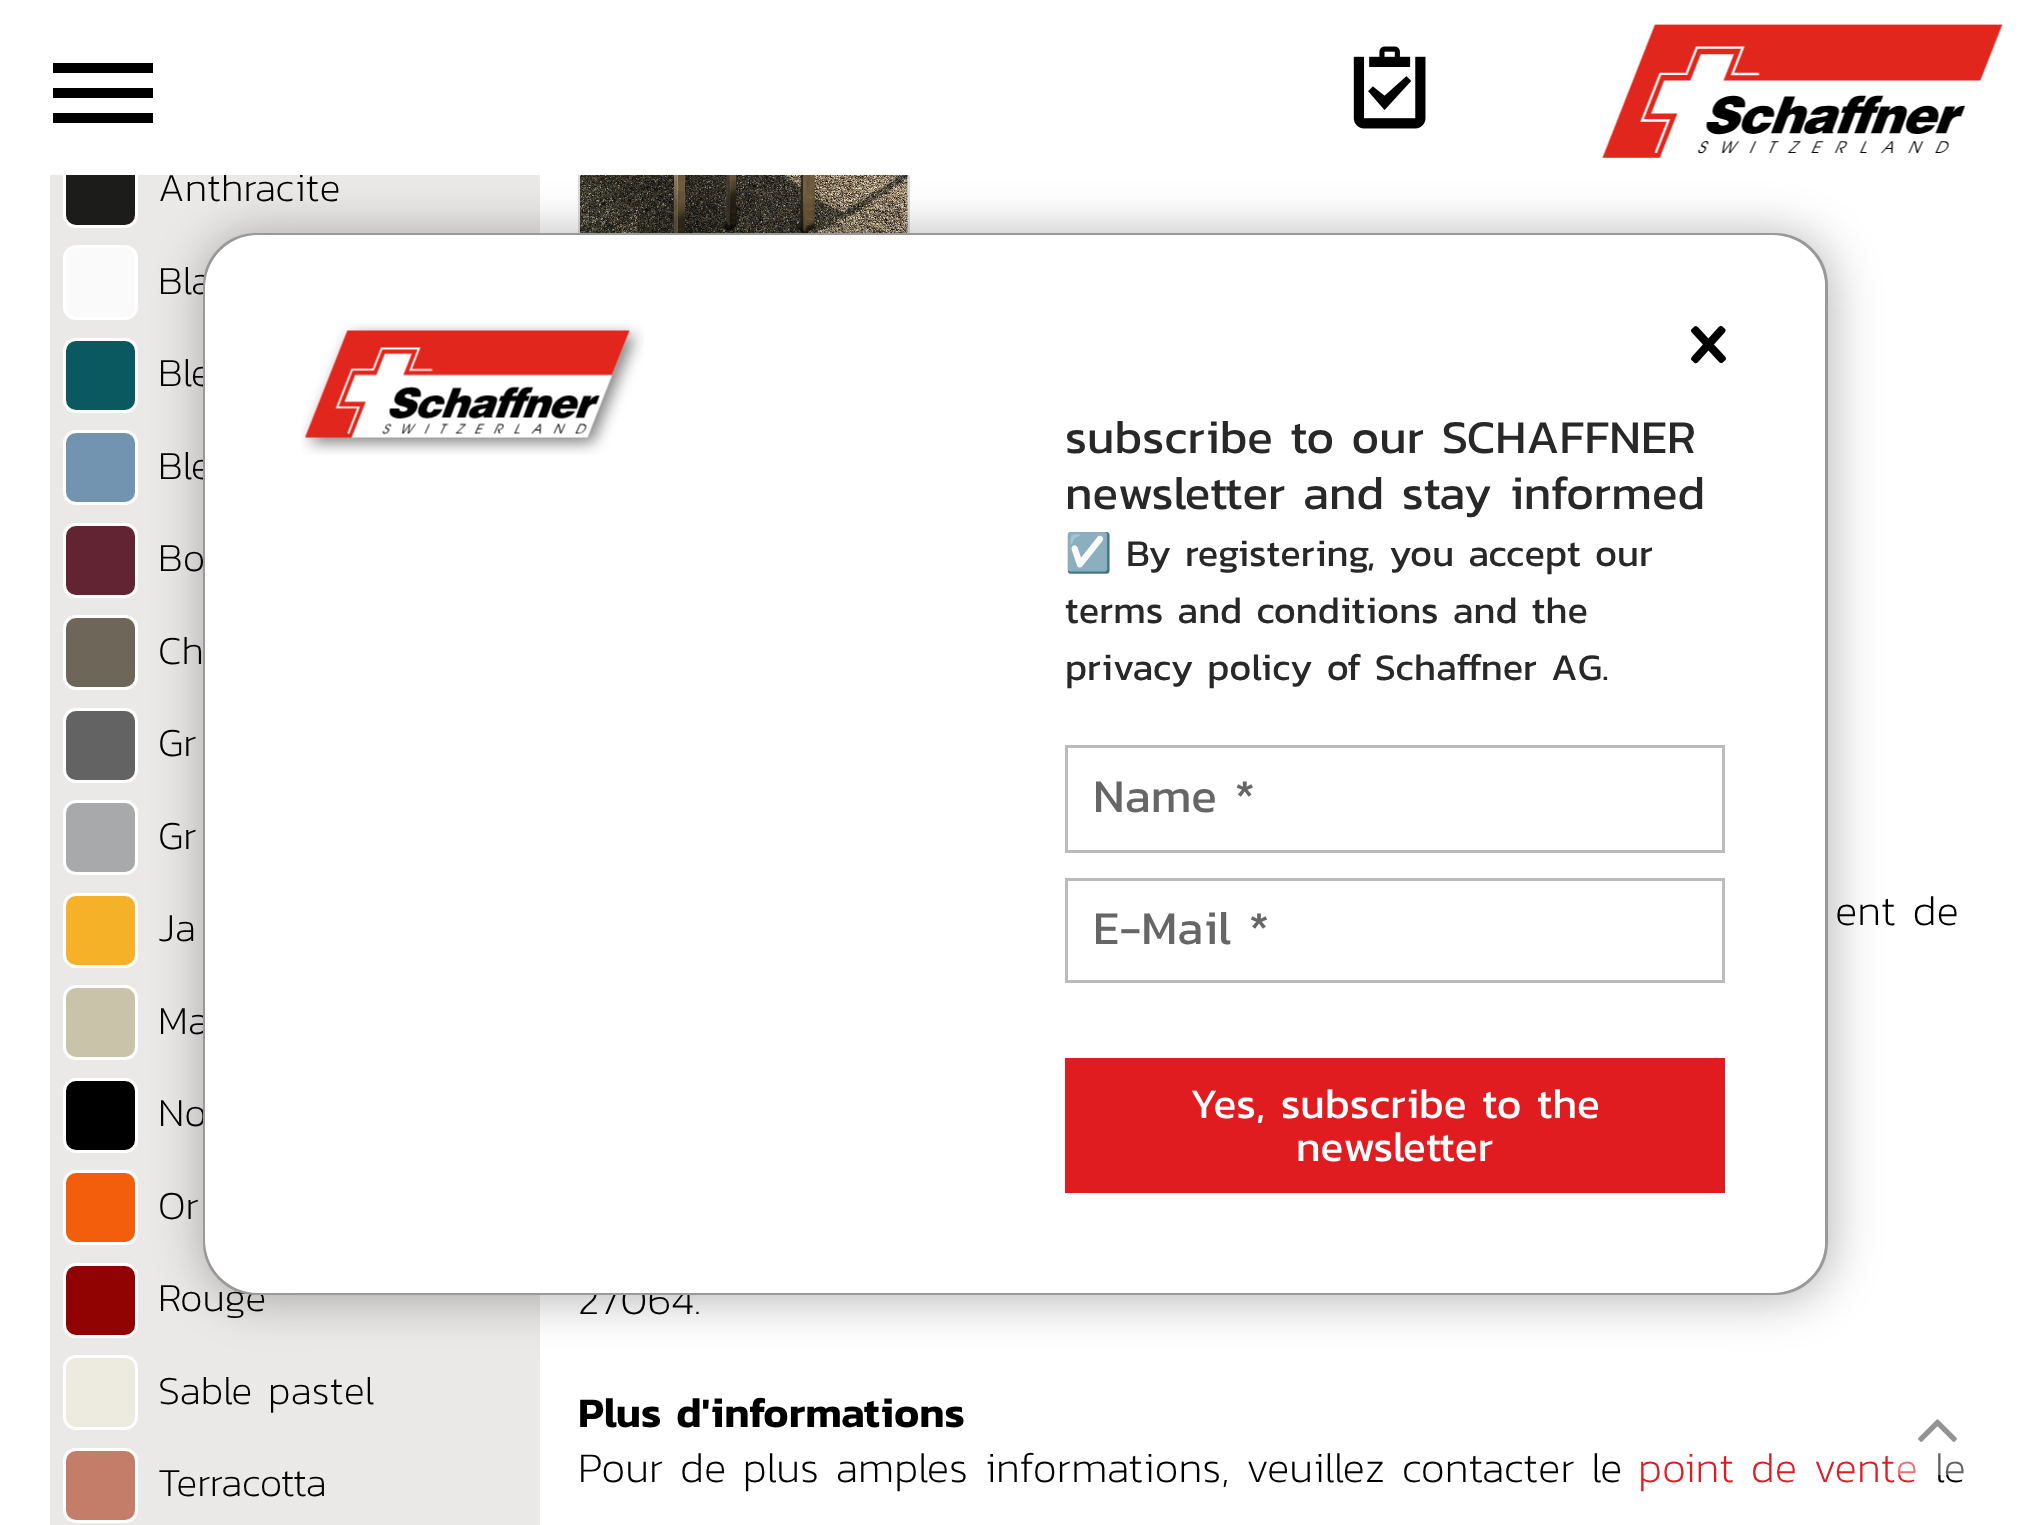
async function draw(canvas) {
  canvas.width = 2031
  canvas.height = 1525
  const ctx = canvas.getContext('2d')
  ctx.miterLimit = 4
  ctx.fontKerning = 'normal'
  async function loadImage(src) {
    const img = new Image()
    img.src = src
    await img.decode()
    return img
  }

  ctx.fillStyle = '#fff'
  ctx.fillRect(0, 0, 2031, 1525)
  ctx.fillStyle = '#ebe9e8'
  ctx.fillRect(50, 175, 490, 1350)
  ctx.fillStyle = '#1c1c1b'
  ctx.beginPath()
  ctx.roundRect(64.5, 154.5, 72, 72, 11.5)
  ctx.fill()
  ctx.strokeStyle = '#fff'
  ctx.lineWidth = 3
  ctx.stroke()
  ctx.font = '200 40px Kanit'
  ctx.fillStyle = '#000'
  ctx.fillText('Anthracite', 158, 201)
  ctx.strokeStyle = '#ddd'
  ctx.strokeRect(579.5, -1.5, 329, 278)
  ctx.fillStyle = '#fff'
  ctx.fillRect(66, 0, 844, 175)
  ctx.fillStyle = '#000'
  ctx.fillRect(53, 63, 100, 10)
  ctx.fillRect(53, 88, 100, 10)
  ctx.fillRect(53, 113, 100, 10)
  ctx.drawImage(await loadImage('image0.png'), 1353, 46, 73, 83)
  ctx.drawImage(await loadImage('image1.png'), 1602, 24, 401, 134)
  ctx.fillStyle = '#fafafa'
  ctx.beginPath()
  ctx.roundRect(64.5, 246.5, 72, 72, 11.5)
  ctx.fill()
  ctx.strokeStyle = '#fff'
  ctx.stroke()
  ctx.fillStyle = '#000'
  ctx.fillText('Bla', 158, 294)
  ctx.fillStyle = '#0a5961'
  ctx.beginPath()
  ctx.roundRect(64.5, 339.5, 72, 72, 11.5)
  ctx.fill()
  ctx.stroke()
  ctx.fillStyle = '#000'
  ctx.fillText('Ble', 158, 386)
  ctx.fillStyle = '#7394b0'
  ctx.beginPath()
  ctx.roundRect(64.5, 431.5, 72, 72, 11.5)
  ctx.fill()
  ctx.stroke()
  ctx.fillStyle = '#000'
  ctx.fillText('Ble', 158, 479)
  ctx.fillStyle = '#622432'
  ctx.beginPath()
  ctx.roundRect(64.5, 524.5, 72, 72, 11.5)
  ctx.fill()
  ctx.stroke()
  ctx.fillStyle = '#000'
  ctx.fillText('Bo', 158, 571)
  ctx.fillStyle = '#6e6659'
  ctx.beginPath()
  ctx.roundRect(64.5, 616.5, 72, 72, 11.5)
  ctx.fill()
  ctx.stroke()
  ctx.fillStyle = '#000'
  ctx.fillText('Ch', 158, 664)
  ctx.fillStyle = '#636363'
  ctx.beginPath()
  ctx.roundRect(64.5, 709.5, 72, 72, 11.5)
  ctx.fill()
  ctx.stroke()
  ctx.fillStyle = '#000'
  ctx.fillText('Gr', 158, 756)
  ctx.fillStyle = '#a8a9ab'
  ctx.beginPath()
  ctx.roundRect(64.5, 801.5, 72, 72, 11.5)
  ctx.fill()
  ctx.stroke()
  ctx.fillStyle = '#000'
  ctx.fillText('Gr', 158, 849)
  ctx.fillStyle = '#f5b128'
  ctx.beginPath()
  ctx.roundRect(64.5, 894.5, 72, 72, 11.5)
  ctx.fill()
  ctx.stroke()
  ctx.fillStyle = '#000'
  ctx.fillText('Ja', 158, 941)
  ctx.fillStyle = '#c9c4a9'
  ctx.beginPath()
  ctx.roundRect(64.5, 986.5, 72, 72, 11.5)
  ctx.fill()
  ctx.stroke()
  ctx.fillStyle = '#000'
  ctx.fillText('Ma', 158, 1034)
  ctx.beginPath()
  ctx.roundRect(64.5, 1079.5, 72, 72, 11.5)
  ctx.fill()
  ctx.stroke()
  ctx.fillText('No', 158, 1126)
  ctx.fillStyle = '#f35e0d'
  ctx.beginPath()
  ctx.roundRect(64.5, 1171.5, 72, 72, 11.5)
  ctx.fill()
  ctx.stroke()
  ctx.fillStyle = '#000'
  ctx.fillText('Or', 158, 1219)
  ctx.fillStyle = '#910303'
  ctx.beginPath()
  ctx.roundRect(64.5, 1264.5, 72, 72, 11.5)
  ctx.fill()
  ctx.stroke()
  ctx.fillStyle = '#000'
  ctx.fillText('Rouge', 158, 1311)
  ctx.fillStyle = '#edebdf'
  ctx.beginPath()
  ctx.roundRect(64.5, 1356.5, 72, 72, 11.5)
  ctx.fill()
  ctx.stroke()
  ctx.fillStyle = '#000'
  ctx.fillText('Sable pastel', 158, 1404)
  ctx.fillStyle = '#c37d69'
  ctx.beginPath()
  ctx.roundRect(64.5, 1449.5, 72, 72, 11.5)
  ctx.fill()
  ctx.stroke()
  ctx.fillStyle = '#000'
  ctx.fillText('Terracotta', 158, 1496)
  ctx.drawImage(await loadImage('image2.png'), 580, 175, 328, 58)
  ctx.font = '200 42.5px Kanit'
  ctx.fillText('ent de', 1835, 925)
  ctx.fillText('27064.', 578, 1314)
  ctx.font = '600 42.5px Kanit'
  ctx.fillText('Plus d\'informations', 578, 1427)
  ctx.font = '200 42.5px Kanit'
  ctx.fillText('Pour de plus amples informations, veuillez contacter le', 578, 1482)
  ctx.fillStyle = '#e01c21'
  ctx.fillText('point de vente', 1638, 1482)
  ctx.fillStyle = '#000'
  ctx.fillText('le', 1935, 1482)
  ctx.fillStyle = '#0000004d'
  ctx.filter = 'blur(25px)'
  ctx.beginPath()
  ctx.roundRect(205, 235, 1625, 1063, 53)
  ctx.fill()
  ctx.filter = 'none'
  ctx.fillStyle = '#fff'
  ctx.beginPath()
  ctx.roundRect(204.5, 234.5, 1622, 1059, 51.5)
  ctx.fill()
  ctx.strokeStyle = '#999'
  ctx.stroke()
  ctx.beginPath()
  ctx.roundRect(205, 235, 1620, 1058, 53)
  ctx.fill()
  ctx.drawImage(await loadImage('image3.png'), 301, 323, 343, 132)
  ctx.drawImage(await loadImage('image4.png'), 1691, 325, 35, 39)
  ctx.font = '47.5px Kanit'
  ctx.fillStyle = '#282828'
  ctx.fillText('subscribe to our SCHAFFNER', 1065, 453)
  ctx.fillText('newsletter and stay informed', 1065, 509)
  ctx.font = '38px Noto Color Emoji'
  ctx.fillText('☑️', 1065, 566)
  ctx.font = '38px Kanit'
  ctx.fillText('By registering, you accept our', 1126, 566)
  ctx.fillText('terms and conditions and the', 1065, 623)
  ctx.fillText('privacy policy of Schaffner AG.', 1065, 680)
  ctx.strokeStyle = '#bbb'
  ctx.strokeRect(1066.5, 746.5, 657, 105)
  ctx.font = '47.5px Kanit'
  ctx.fillStyle = '#666'
  ctx.fillText('Name *', 1093, 812)
  ctx.strokeRect(1066.5, 879.5, 657, 102)
  ctx.fillText('E-Mail *', 1093, 944)
  ctx.fillStyle = '#e01c21'
  ctx.fillRect(1065, 1058, 660, 135)
  ctx.font = '42.5px Kanit'
  ctx.fillStyle = '#fff'
  ctx.fillText('Yes, subscribe to the', 1190, 1118)
  ctx.fillText('newsletter', 1296, 1161)
  ctx.fillStyle = '#ffffff61'
  ctx.fillRect(1893, 1453, 71, 22)
  ctx.drawImage(await loadImage('image5.png'), 1918, 1419, 39, 23)
}

draw(document.querySelector('canvas'))
